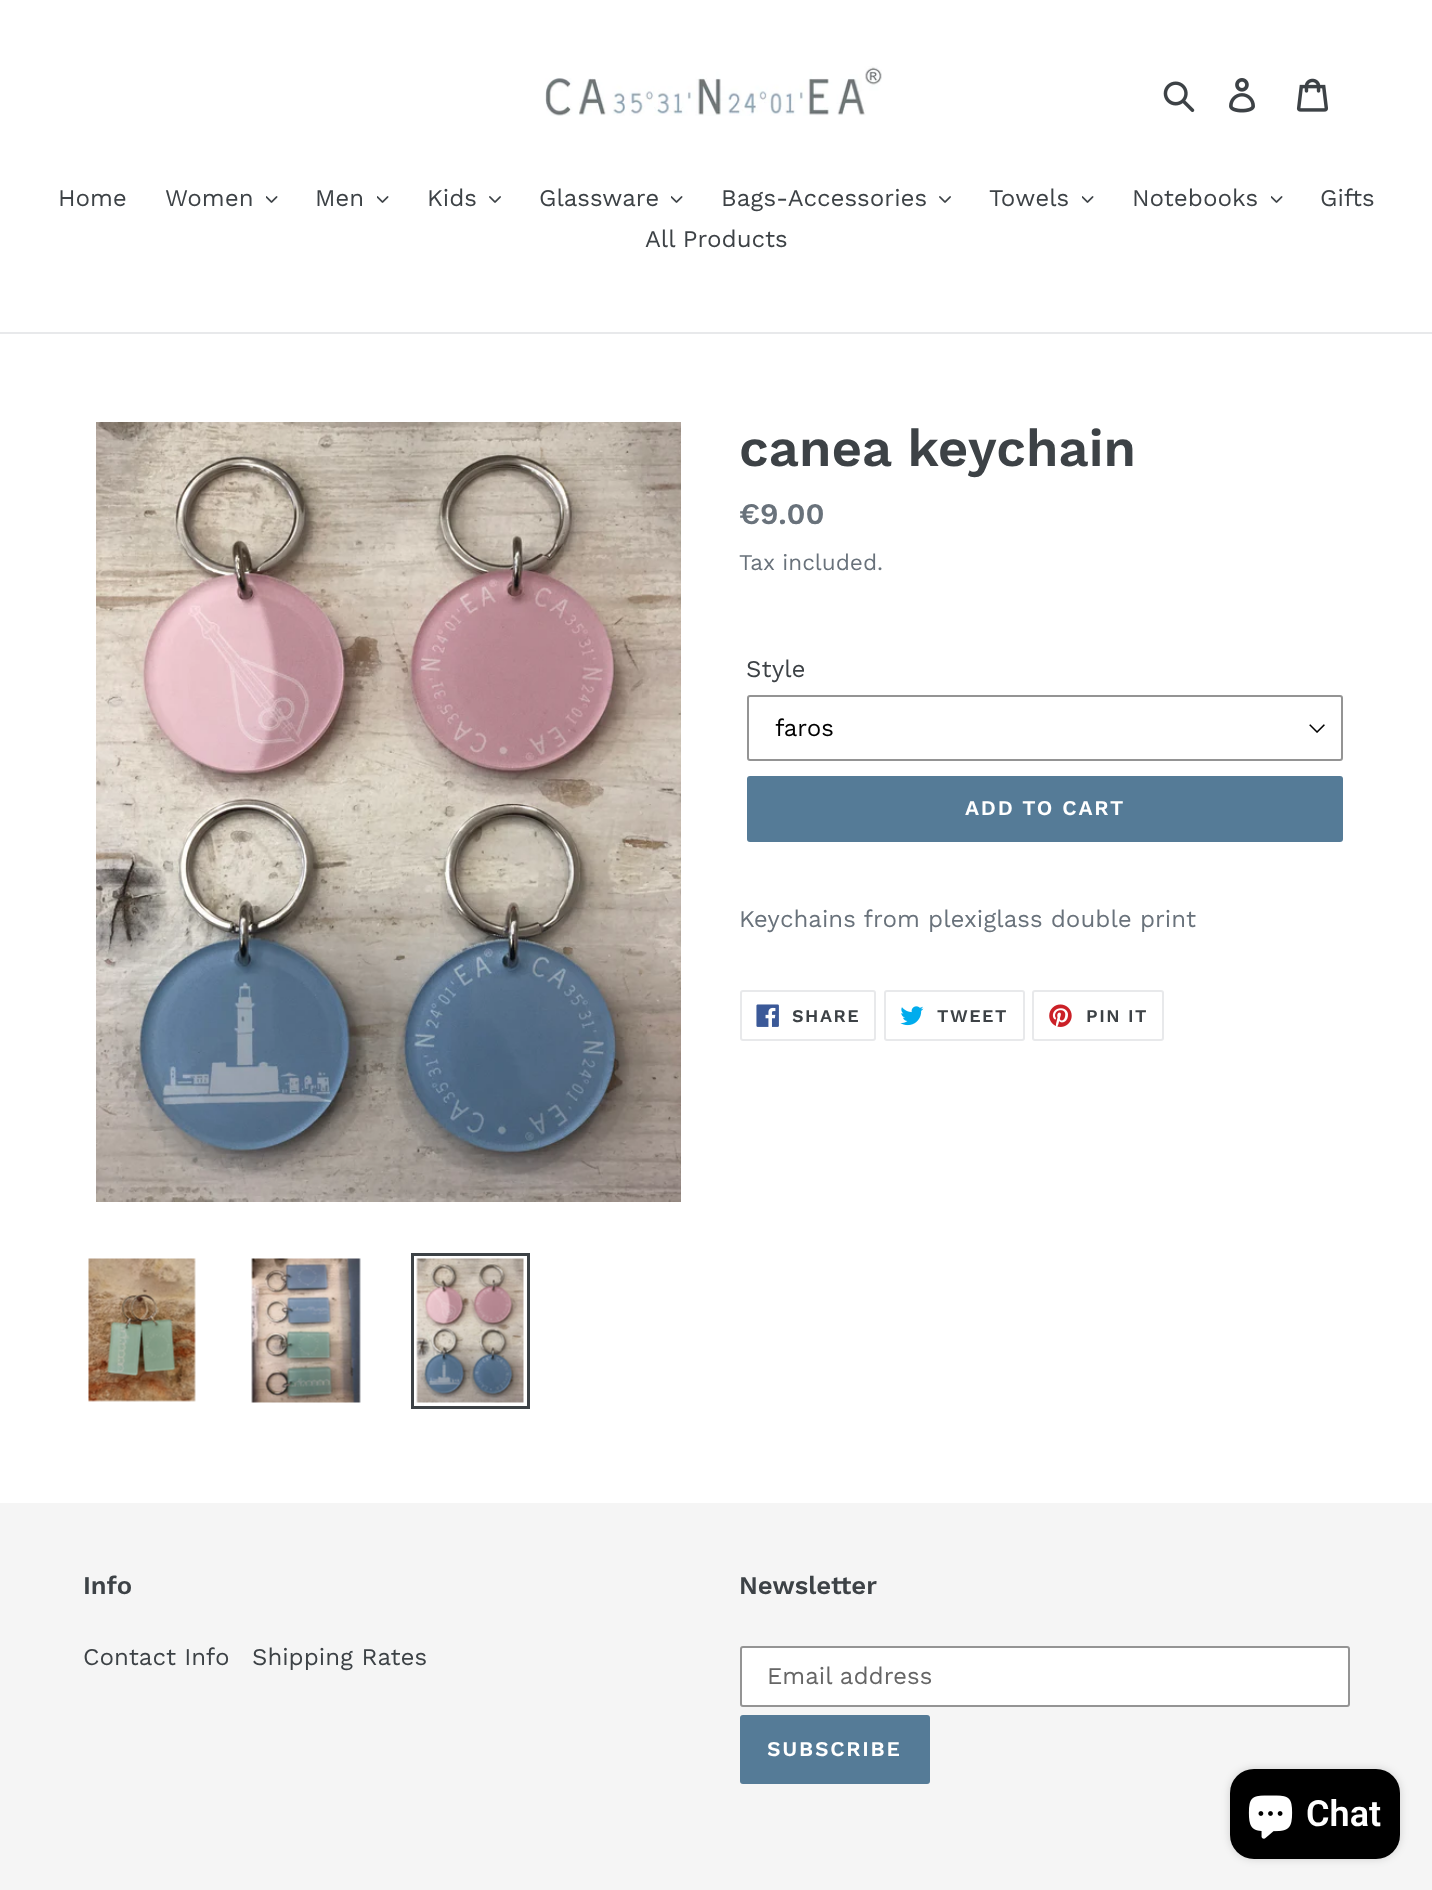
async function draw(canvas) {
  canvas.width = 1432
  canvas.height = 1890
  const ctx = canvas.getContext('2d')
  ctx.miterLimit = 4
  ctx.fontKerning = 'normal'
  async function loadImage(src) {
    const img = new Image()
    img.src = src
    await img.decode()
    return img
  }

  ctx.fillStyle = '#fff'
  ctx.fillRect(0, 0, 1432, 1890)
  ctx.drawImage(await loadImage('image0.png'), 545, 66, 337, 50)
  ctx.drawImage(await loadImage('image1.png'), 1163, 81, 32, 32)
  ctx.drawImage(await loadImage('image2.png'), 1229, 78, 26, 35)
  ctx.drawImage(await loadImage('image3.png'), 1296, 78, 32, 34)
  ctx.fillStyle = '#e8e9eb'
  ctx.fillRect(0, 332, 1432, 2)
  ctx.font = '24px Work Sans'
  ctx.fillStyle = '#3d4246'
  ctx.fillText('Home', 58, 206)
  ctx.fillText('Women', 165, 206)
  ctx.drawImage(await loadImage('image4.png'), 266, 196, 12, 7)
  ctx.fillText('Men', 315, 206)
  ctx.drawImage(await loadImage('image4.png'), 377, 196, 12, 7)
  ctx.fillText('Kids', 427, 206)
  ctx.drawImage(await loadImage('image5.png'), 489, 196, 12, 7)
  ctx.fillText('Glassware', 539, 206)
  ctx.drawImage(await loadImage('image4.png'), 671, 196, 12, 7)
  ctx.fillText('Bags-Accessories', 721, 206)
  ctx.drawImage(await loadImage('image5.png'), 939, 196, 12, 7)
  ctx.fillText('Towels', 989, 206)
  ctx.drawImage(await loadImage('image4.png'), 1082, 196, 12, 7)
  ctx.fillText('Notebooks', 1132, 206)
  ctx.drawImage(await loadImage('image4.png'), 1271, 196, 12, 7)
  ctx.fillText('Gifts', 1320, 206)
  ctx.fillText('All Products', 645, 247)
  ctx.drawImage(await loadImage('image6.png'), 96, 422, 585, 780)
  ctx.drawImage(await loadImage('image7.png'), 88, 1258, 108, 144)
  ctx.drawImage(await loadImage('image8.png'), 251, 1258, 110, 145)
  ctx.strokeStyle = '#3d4246'
  ctx.lineWidth = 3
  ctx.strokeRect(412.5, 1254.5, 116, 153)
  ctx.drawImage(await loadImage('image9.png'), 416, 1258, 108, 145)
  ctx.font = '600 52.5px Work Sans'
  ctx.fillText('canea keychain', 739, 466)
  ctx.font = '600 30px Work Sans'
  ctx.fillStyle = '#69727b'
  ctx.fillText('€9.00', 739, 524)
  ctx.font = '22.5px Work Sans'
  ctx.fillText('Tax included.', 739, 570)
  ctx.font = '24px Work Sans'
  ctx.fillStyle = '#3d4246'
  ctx.fillText('Style', 746, 677)
  ctx.drawImage(await loadImage('image10.png'), 1309, 724, 16, 9)
  ctx.beginPath()
  ctx.roundRect(748, 696, 594, 64, 2)
  ctx.strokeStyle = '#949494'
  ctx.lineWidth = 2
  ctx.stroke()
  ctx.fillStyle = '#000'
  ctx.fillText('faros', 775, 736)
  ctx.fillStyle = '#557b97'
  ctx.beginPath()
  ctx.roundRect(747, 776, 596, 66, 3)
  ctx.fill()
  ctx.letterSpacing = '1.75px'
  ctx.font = '600 21px Work Sans'
  ctx.fillStyle = '#fff'
  ctx.fillText('ADD TO CART', 965, 815)
  ctx.letterSpacing = '0px'
  ctx.font = '24px Work Sans'
  ctx.fillStyle = '#69727b'
  ctx.fillText('Keychains from plexiglass double print', 739, 927)
  ctx.beginPath()
  ctx.roundRect(741, 991, 134, 49, 2)
  ctx.strokeStyle = '#e8e9eb'
  ctx.stroke()
  ctx.drawImage(await loadImage('image11.png'), 756, 1004, 23, 23)
  ctx.letterSpacing = '1.5px'
  ctx.font = '600 18px Work Sans'
  ctx.fillStyle = '#3d4246'
  ctx.fillText('SHARE', 792, 1022)
  ctx.beginPath()
  ctx.roundRect(885, 991, 139, 49, 2)
  ctx.stroke()
  ctx.drawImage(await loadImage('image12.png'), 900, 1006, 24, 20)
  ctx.fillText('TWEET', 937, 1022)
  ctx.beginPath()
  ctx.roundRect(1033, 991, 130, 49, 2)
  ctx.stroke()
  ctx.drawImage(await loadImage('image13.png'), 1049, 1004, 23, 23)
  ctx.fillText('PIN IT', 1086, 1022)
  ctx.fillStyle = '#f5f5f5'
  ctx.fillRect(0, 1503, 1432, 387)
  ctx.letterSpacing = '0px'
  ctx.font = '600 25.5px Work Sans'
  ctx.fillStyle = '#3d4246'
  ctx.fillText('Info', 83, 1594)
  ctx.font = '24px Work Sans'
  ctx.fillText('Contact Info', 83, 1665)
  ctx.fillText('Shipping Rates', 252, 1665)
  ctx.font = '600 25.5px Work Sans'
  ctx.fillText('Newsletter', 739, 1594)
  ctx.fillStyle = '#fff'
  ctx.beginPath()
  ctx.roundRect(741, 1647, 608, 59, 2)
  ctx.fill()
  ctx.strokeStyle = '#949494'
  ctx.stroke()
  ctx.font = '24px Work Sans'
  ctx.fillStyle = '#666'
  ctx.fillText('Email address', 767, 1684)
  ctx.fillStyle = '#557b97'
  ctx.beginPath()
  ctx.roundRect(740, 1715, 190, 69, 3)
  ctx.fill()
  ctx.letterSpacing = '1.75px'
  ctx.font = '600 21px Work Sans'
  ctx.fillStyle = '#fff'
  ctx.fillText('SUBSCRIBE', 767, 1756)
  ctx.fillStyle = '#00000026'
  ctx.filter = 'blur(4px)'
  ctx.beginPath()
  ctx.roundRect(1230, 1769, 170, 90, 24)
  ctx.fill()
  ctx.filter = 'none'
  ctx.fillStyle = '#000'
  ctx.beginPath()
  ctx.roundRect(1230, 1769, 170, 90, 24)
  ctx.fill()
  ctx.drawImage(await loadImage('image14.png'), 1248, 1795, 45, 44)
  ctx.letterSpacing = '0px'
  ctx.font = '600 36px Roboto'
  ctx.fillStyle = '#fff'
  ctx.fillText('Chat', 1306, 1826)
}

draw(document.querySelector('canvas'))
